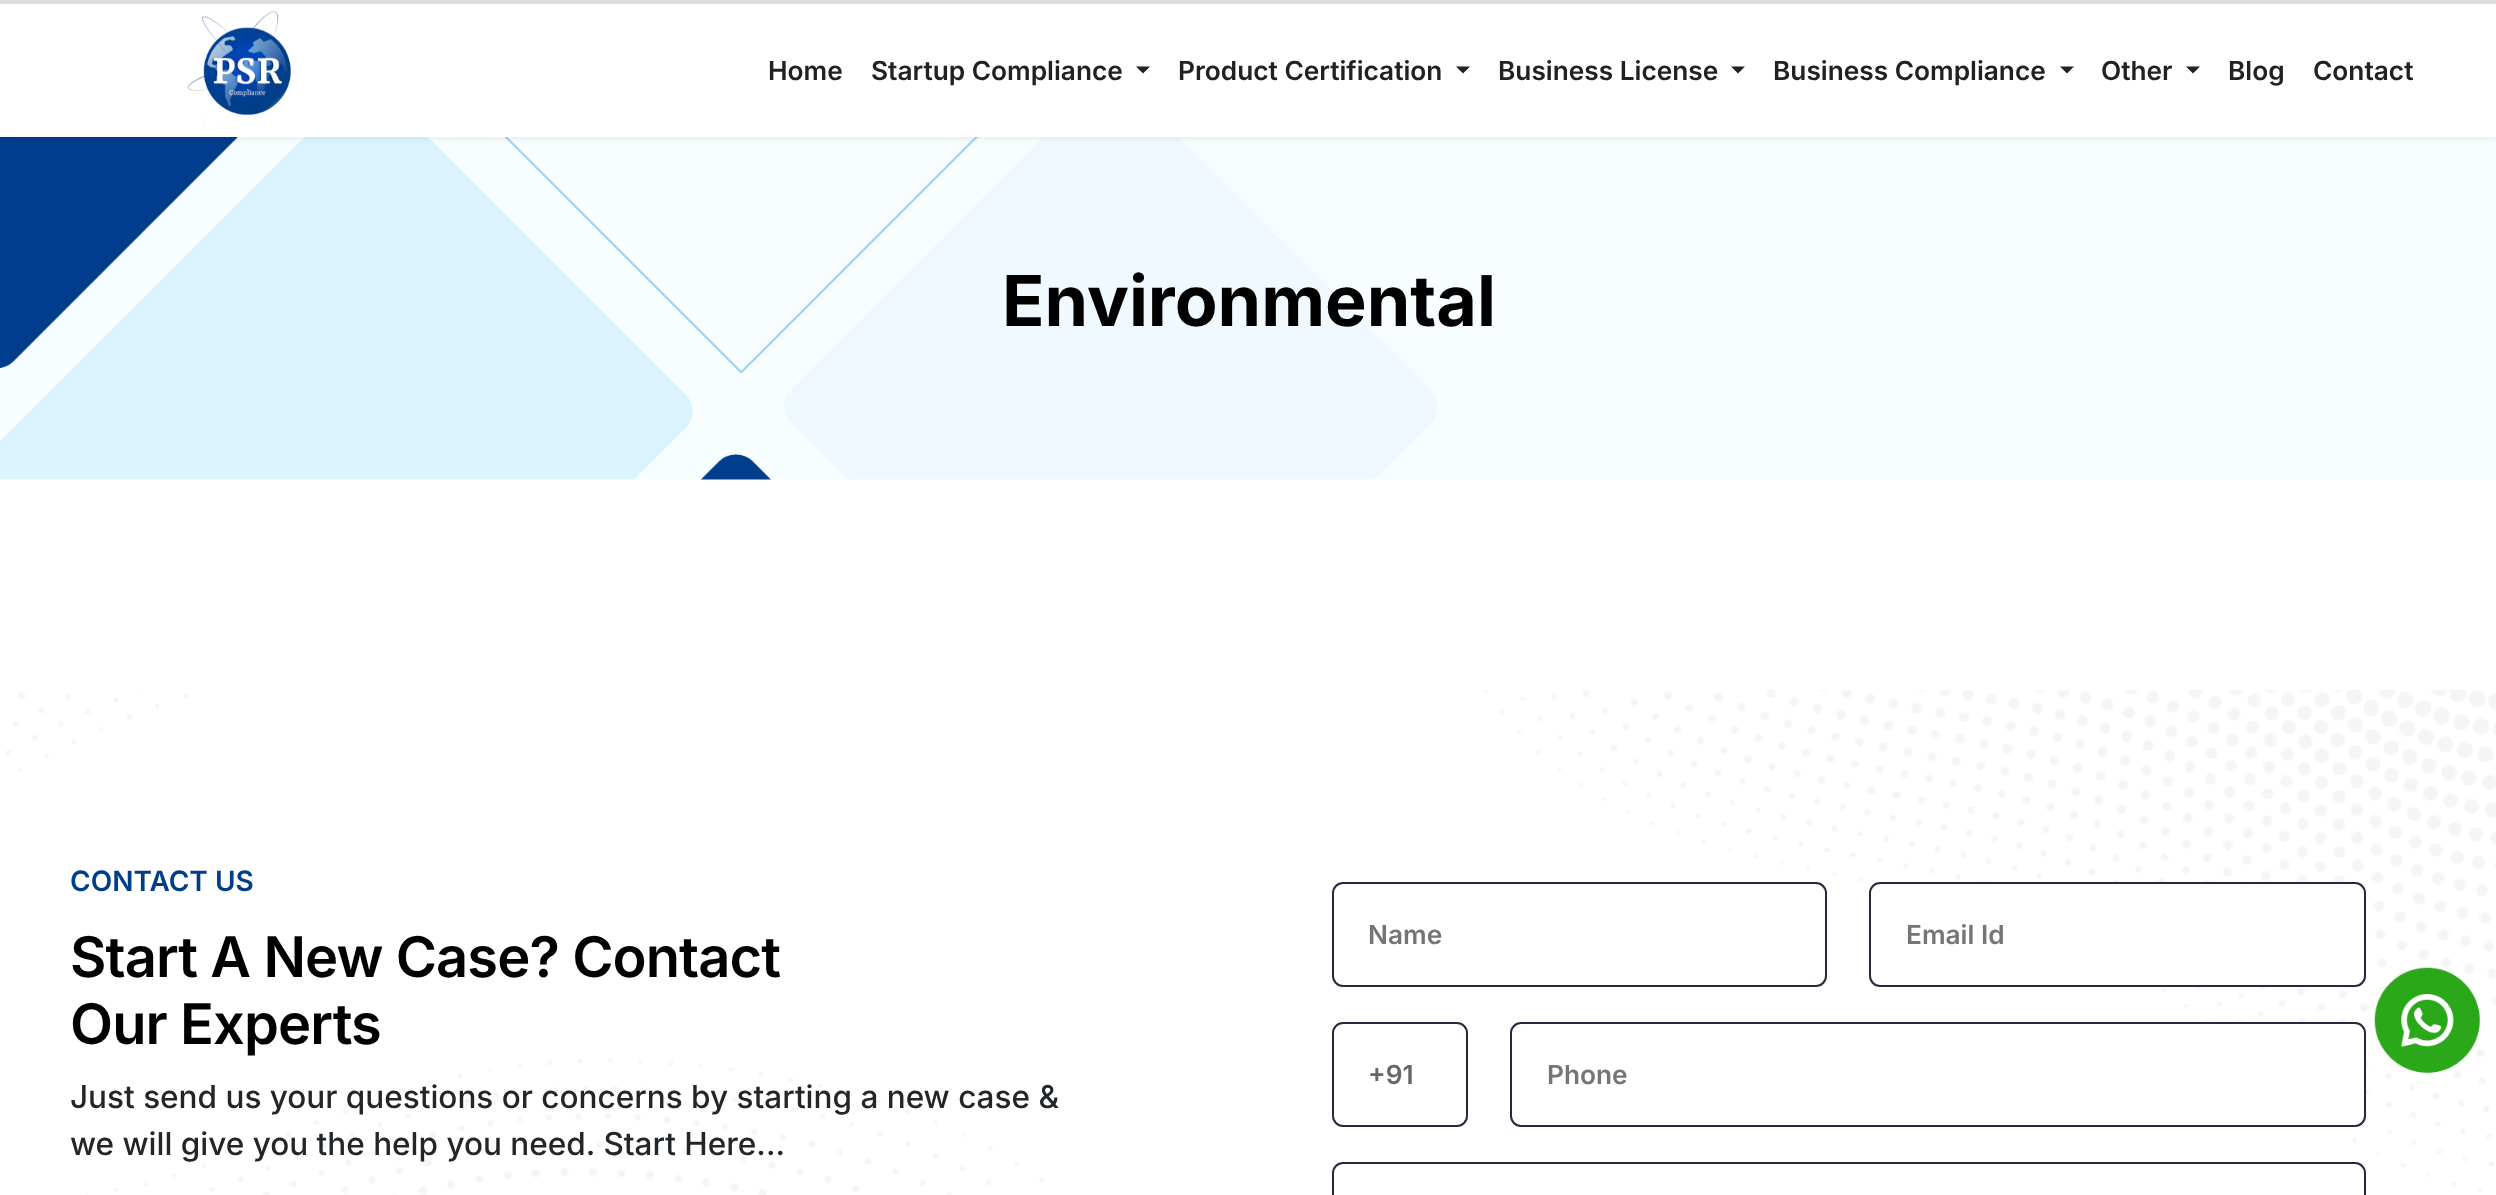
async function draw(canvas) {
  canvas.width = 2496
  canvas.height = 1195
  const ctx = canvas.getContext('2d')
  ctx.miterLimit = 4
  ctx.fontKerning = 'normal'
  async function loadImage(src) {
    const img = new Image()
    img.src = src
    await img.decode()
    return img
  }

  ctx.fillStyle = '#fff'
  ctx.fillRect(0, 0, 2496, 1195)
  ctx.drawImage(await loadImage('image1.png'), 0, 137, 2496, 343)
  ctx.fillStyle = '#0000000d'
  ctx.filter = 'blur(2px)'
  ctx.beginPath()
  ctx.rect(0, 4, 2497, 136)
  ctx.fill()
  ctx.filter = 'none'
  ctx.fillStyle = '#fff'
  ctx.fillRect(0, 4, 2496, 133)
  ctx.fillStyle = '#dedede'
  ctx.fillRect(0, 0, 2496, 4)
  ctx.drawImage(await loadImage('image0.png'), 187, 11, 104, 123)
  ctx.font = '600 26.25px Inter'
  ctx.fillStyle = '#212121'
  ctx.fillText('Home', 768, 80)
  ctx.fillText('Startup Compliance', 871, 80)
  ctx.beginPath()
  ctx.moveTo(1136, 66.5)
  ctx.lineTo(1150, 66.5)
  ctx.lineTo(1143, 73.5)
  ctx.closePath()
  ctx.fill()
  ctx.fillText('Product Certification', 1178, 80)
  ctx.beginPath()
  ctx.moveTo(1456, 66.5)
  ctx.lineTo(1470, 66.5)
  ctx.lineTo(1463, 73.5)
  ctx.closePath()
  ctx.fill()
  ctx.fillText('Business License', 1498, 80)
  ctx.beginPath()
  ctx.moveTo(1731, 66.5)
  ctx.lineTo(1745, 66.5)
  ctx.lineTo(1738, 73.5)
  ctx.closePath()
  ctx.fill()
  ctx.fillText('Business Compliance', 1773, 80)
  ctx.beginPath()
  ctx.moveTo(2060, 66.5)
  ctx.lineTo(2074, 66.5)
  ctx.lineTo(2067, 73.5)
  ctx.closePath()
  ctx.fill()
  ctx.fillText('Other', 2101, 80)
  ctx.beginPath()
  ctx.moveTo(2186, 66.5)
  ctx.lineTo(2200, 66.5)
  ctx.lineTo(2193, 73.5)
  ctx.closePath()
  ctx.fill()
  ctx.fillText('Blog', 2228, 80)
  ctx.fillText('Contact', 2313, 80)
  ctx.font = 'bold 70px Inter'
  ctx.fillStyle = '#000'
  ctx.fillText('Environmental', 1002, 326)
  ctx.drawImage(await loadImage('image2.png'), 6, 690, 2490, 505)
  ctx.font = '600 28px Inter'
  ctx.fillStyle = '#003e89'
  ctx.fillText('CONTACT US', 70, 891)
  ctx.letterSpacing = '-0.9px'
  ctx.font = '600 56px Inter'
  ctx.fillStyle = '#000'
  ctx.fillText('Start A New Case? Contact', 70, 977)
  ctx.fillText('Our Experts', 70, 1044)
  ctx.letterSpacing = '0px'
  ctx.font = '500 31.5px Inter'
  ctx.fillStyle = '#232629'
  ctx.fillText('Just send us your questions or concerns by starting a new case &', 70, 1108)
  ctx.fillText('we will give you the help you need. Start Here...', 70, 1155)
  ctx.beginPath()
  ctx.roundRect(1333, 883, 493, 103, 10)
  ctx.strokeStyle = '#252a3f'
  ctx.lineWidth = 2
  ctx.stroke()
  ctx.font = '600 26.25px Inter'
  ctx.fillStyle = '#757575'
  ctx.fillText('Name', 1368, 944)
  ctx.fillStyle = '#fff'
  ctx.beginPath()
  ctx.roundRect(1870, 883, 495, 103, 10)
  ctx.fill()
  ctx.stroke()
  ctx.fillStyle = '#757575'
  ctx.fillText('Email Id', 1906, 944)
  ctx.beginPath()
  ctx.roundRect(1333, 1023, 134, 103, 10)
  ctx.stroke()
  ctx.fillStyle = '#686868'
  ctx.fillText('+91', 1368, 1084)
  ctx.fillStyle = '#fff'
  ctx.beginPath()
  ctx.roundRect(1511, 1023, 854, 103, 10)
  ctx.fill()
  ctx.stroke()
  ctx.fillStyle = '#757575'
  ctx.fillText('Phone', 1547, 1084)
  ctx.beginPath()
  ctx.roundRect(1333, 1163, 1032, 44, 10)
  ctx.stroke()
  ctx.drawImage(await loadImage('image3.png'), 2374, 967, 106, 106)
}

draw(document.querySelector('canvas'))
